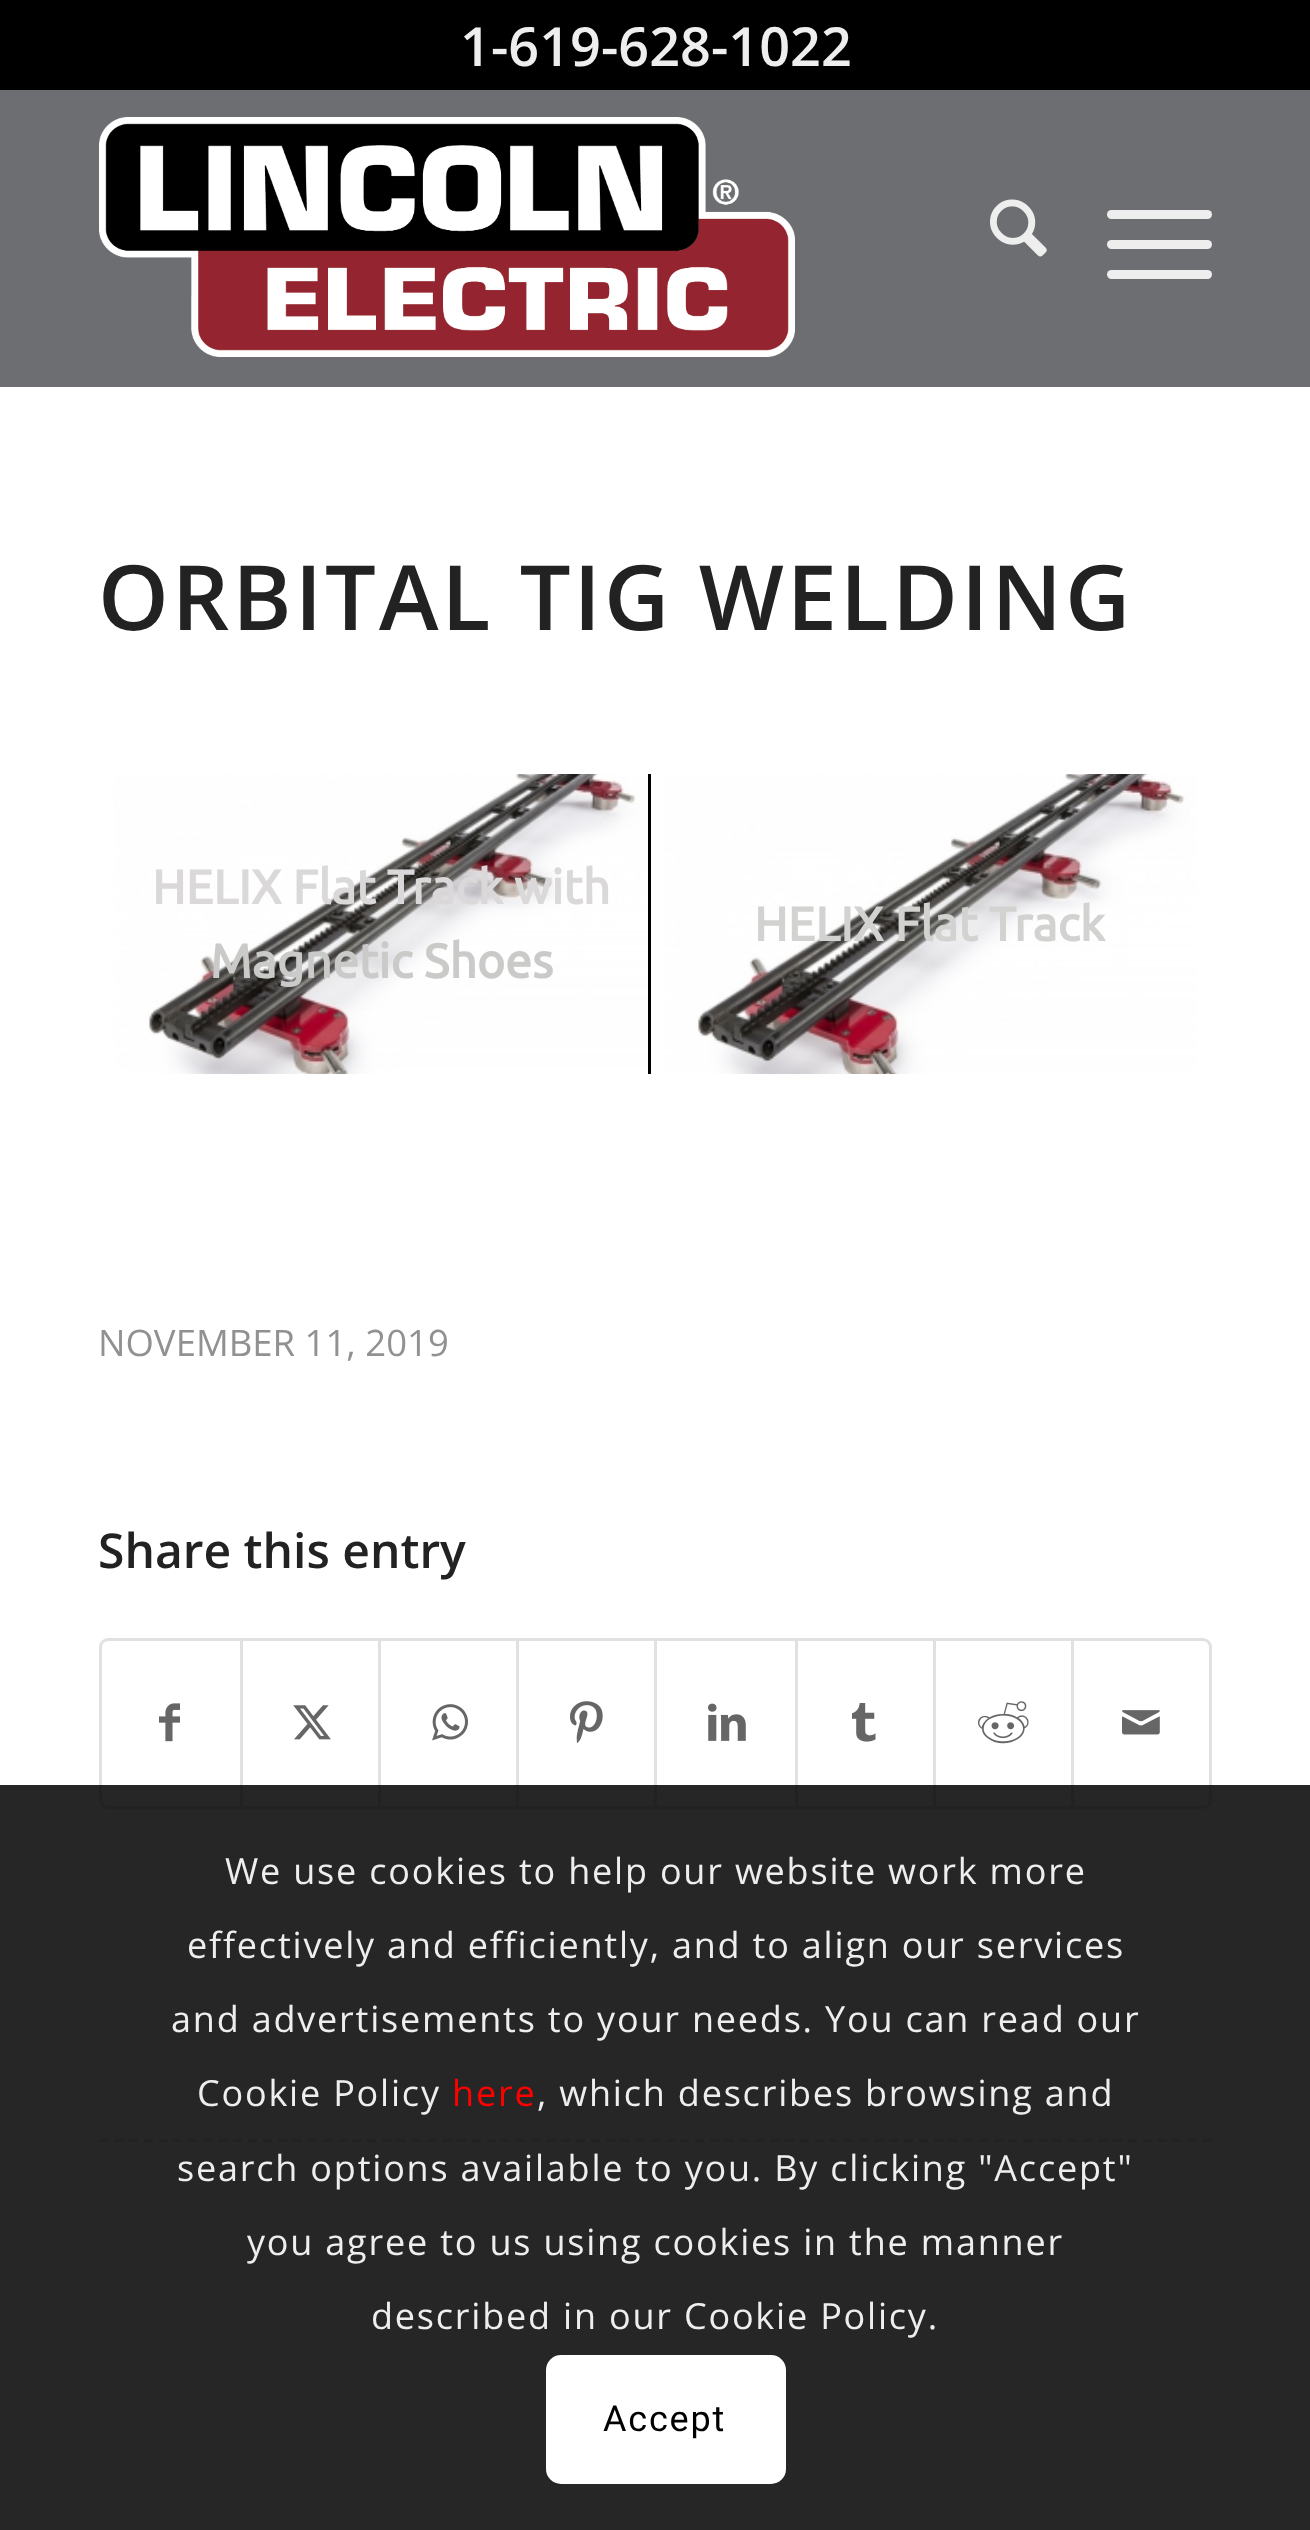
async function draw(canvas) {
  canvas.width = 1310
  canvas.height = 2530
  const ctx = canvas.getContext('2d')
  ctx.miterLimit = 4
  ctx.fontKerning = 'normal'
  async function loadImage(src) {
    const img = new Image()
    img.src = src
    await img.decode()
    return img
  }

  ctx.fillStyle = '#fff'
  ctx.fillRect(0, 0, 1310, 2530)
  ctx.fillStyle = '#000'
  ctx.fillRect(0, 0, 1310, 90)
  ctx.font = '600 54px Open Sans'
  ctx.fillStyle = '#eee'
  ctx.fillText('1-619-628-1022', 460, 66)
  ctx.fillStyle = '#6d6e71'
  ctx.fillRect(0, 90, 1310, 297)
  ctx.drawImage(await loadImage('image0.png'), 99, 117, 696, 240)
  ctx.drawImage(await loadImage('image1.png'), 990, 199, 57, 58)
  ctx.fillStyle = '#eee'
  ctx.beginPath()
  ctx.roundRect(1107, 240, 105, 9, 4.5)
  ctx.fill()
  ctx.beginPath()
  ctx.roundRect(1107, 210, 105, 9, 4.5)
  ctx.fill()
  ctx.beginPath()
  ctx.roundRect(1107, 270, 105, 9, 4.5)
  ctx.fill()
  ctx.letterSpacing = '3px'
  ctx.font = '600 90px Open Sans'
  ctx.fillStyle = '#222'
  ctx.fillText('ORBITAL TIG WELDING', 98, 630)
  ctx.fillStyle = '#000'
  ctx.fillRect(648, 774, 3, 300)
  ctx.drawImage(await loadImage('image2.png'), 114, 774, 534, 300)
  ctx.letterSpacing = '0px'
  ctx.font = 'bold 48px Ubuntu'
  ctx.fillStyle = '#dad8d8'
  ctx.fillText('HELIX Flat Track with', 152, 904)
  ctx.fillStyle = '#cacac9'
  ctx.fillText('Magnetic Shoes', 210, 978)
  ctx.drawImage(await loadImage('image3.png'), 663, 774, 534, 300)
  ctx.fillStyle = '#d2d2d1'
  ctx.fillText('HELIX Flat Track', 754, 941)
  ctx.font = '36.5px Open Sans'
  ctx.fillStyle = '#919191'
  ctx.fillText('NOVEMBER 11, 2019', 98, 1356)
  ctx.font = '600 48px Open Sans'
  ctx.fillStyle = '#222'
  ctx.fillText('Share this entry', 98, 1568)
  ctx.beginPath()
  ctx.roundRect(100.5, 1639.5, 1110, 168, 7.5)
  ctx.strokeStyle = '#e1e1e1'
  ctx.lineWidth = 3
  ctx.stroke()
  ctx.drawImage(await loadImage('image4.png'), 159, 1703, 21, 39)
  ctx.fillStyle = '#e1e1e1'
  ctx.fillRect(240, 1641, 3, 165)
  ctx.drawImage(await loadImage('image5.png'), 293, 1705, 38, 35)
  ctx.fillRect(378, 1641, 3, 165)
  ctx.drawImage(await loadImage('image6.png'), 432, 1704, 36, 37)
  ctx.fillRect(516, 1641, 3, 165)
  ctx.drawImage(await loadImage('image7.png'), 570, 1701, 33, 43)
  ctx.fillRect(654, 1641, 3, 165)
  ctx.drawImage(await loadImage('image8.png'), 708, 1703, 38, 38)
  ctx.fillRect(795, 1641, 3, 165)
  ctx.drawImage(await loadImage('image9.png'), 852, 1703, 24, 39)
  ctx.fillRect(933, 1641, 3, 165)
  ctx.drawImage(await loadImage('image10.png'), 978, 1701, 51, 43)
  ctx.fillRect(1071, 1641, 3, 165)
  ctx.drawImage(await loadImage('image11.png'), 1122, 1710, 38, 25)
  ctx.beginPath()
  ctx.moveTo(99, 2140.5)
  ctx.lineTo(1212, 2140.5)
  ctx.setLineDash([9, 5.91])
  ctx.stroke()
  ctx.fillStyle = '#000000d9'
  ctx.fillRect(0, 1785, 1310, 745)
  ctx.letterSpacing = '1.8px'
  ctx.font = '36px Open Sans'
  ctx.fillStyle = '#eee'
  ctx.fillText('We use cookies to help our website work more', 225, 1884)
  ctx.fillText('effectively and efficiently, and to align our services', 187, 1958)
  ctx.fillText('and advertisements to your needs. You can read our', 171, 2032)
  ctx.fillText('Cookie Policy', 197, 2106)
  ctx.fillStyle = '#f00'
  ctx.fillText('here', 452, 2106)
  ctx.fillStyle = '#eee'
  ctx.fillText(', which describes browsing and', 537, 2106)
  ctx.fillText('search options available to you. By clicking "Accept"', 177, 2181)
  ctx.fillText('you agree to us using cookies in the manner', 247, 2255)
  ctx.fillText('described in our Cookie Policy.', 371, 2329)
  ctx.fillStyle = '#fff'
  ctx.beginPath()
  ctx.roundRect(546, 2355, 240, 129, 15)
  ctx.fill()
  ctx.font = '36px Roboto'
  ctx.fillStyle = '#000'
  ctx.fillText('Accept', 603, 2431)
}

draw(document.querySelector('canvas'))
